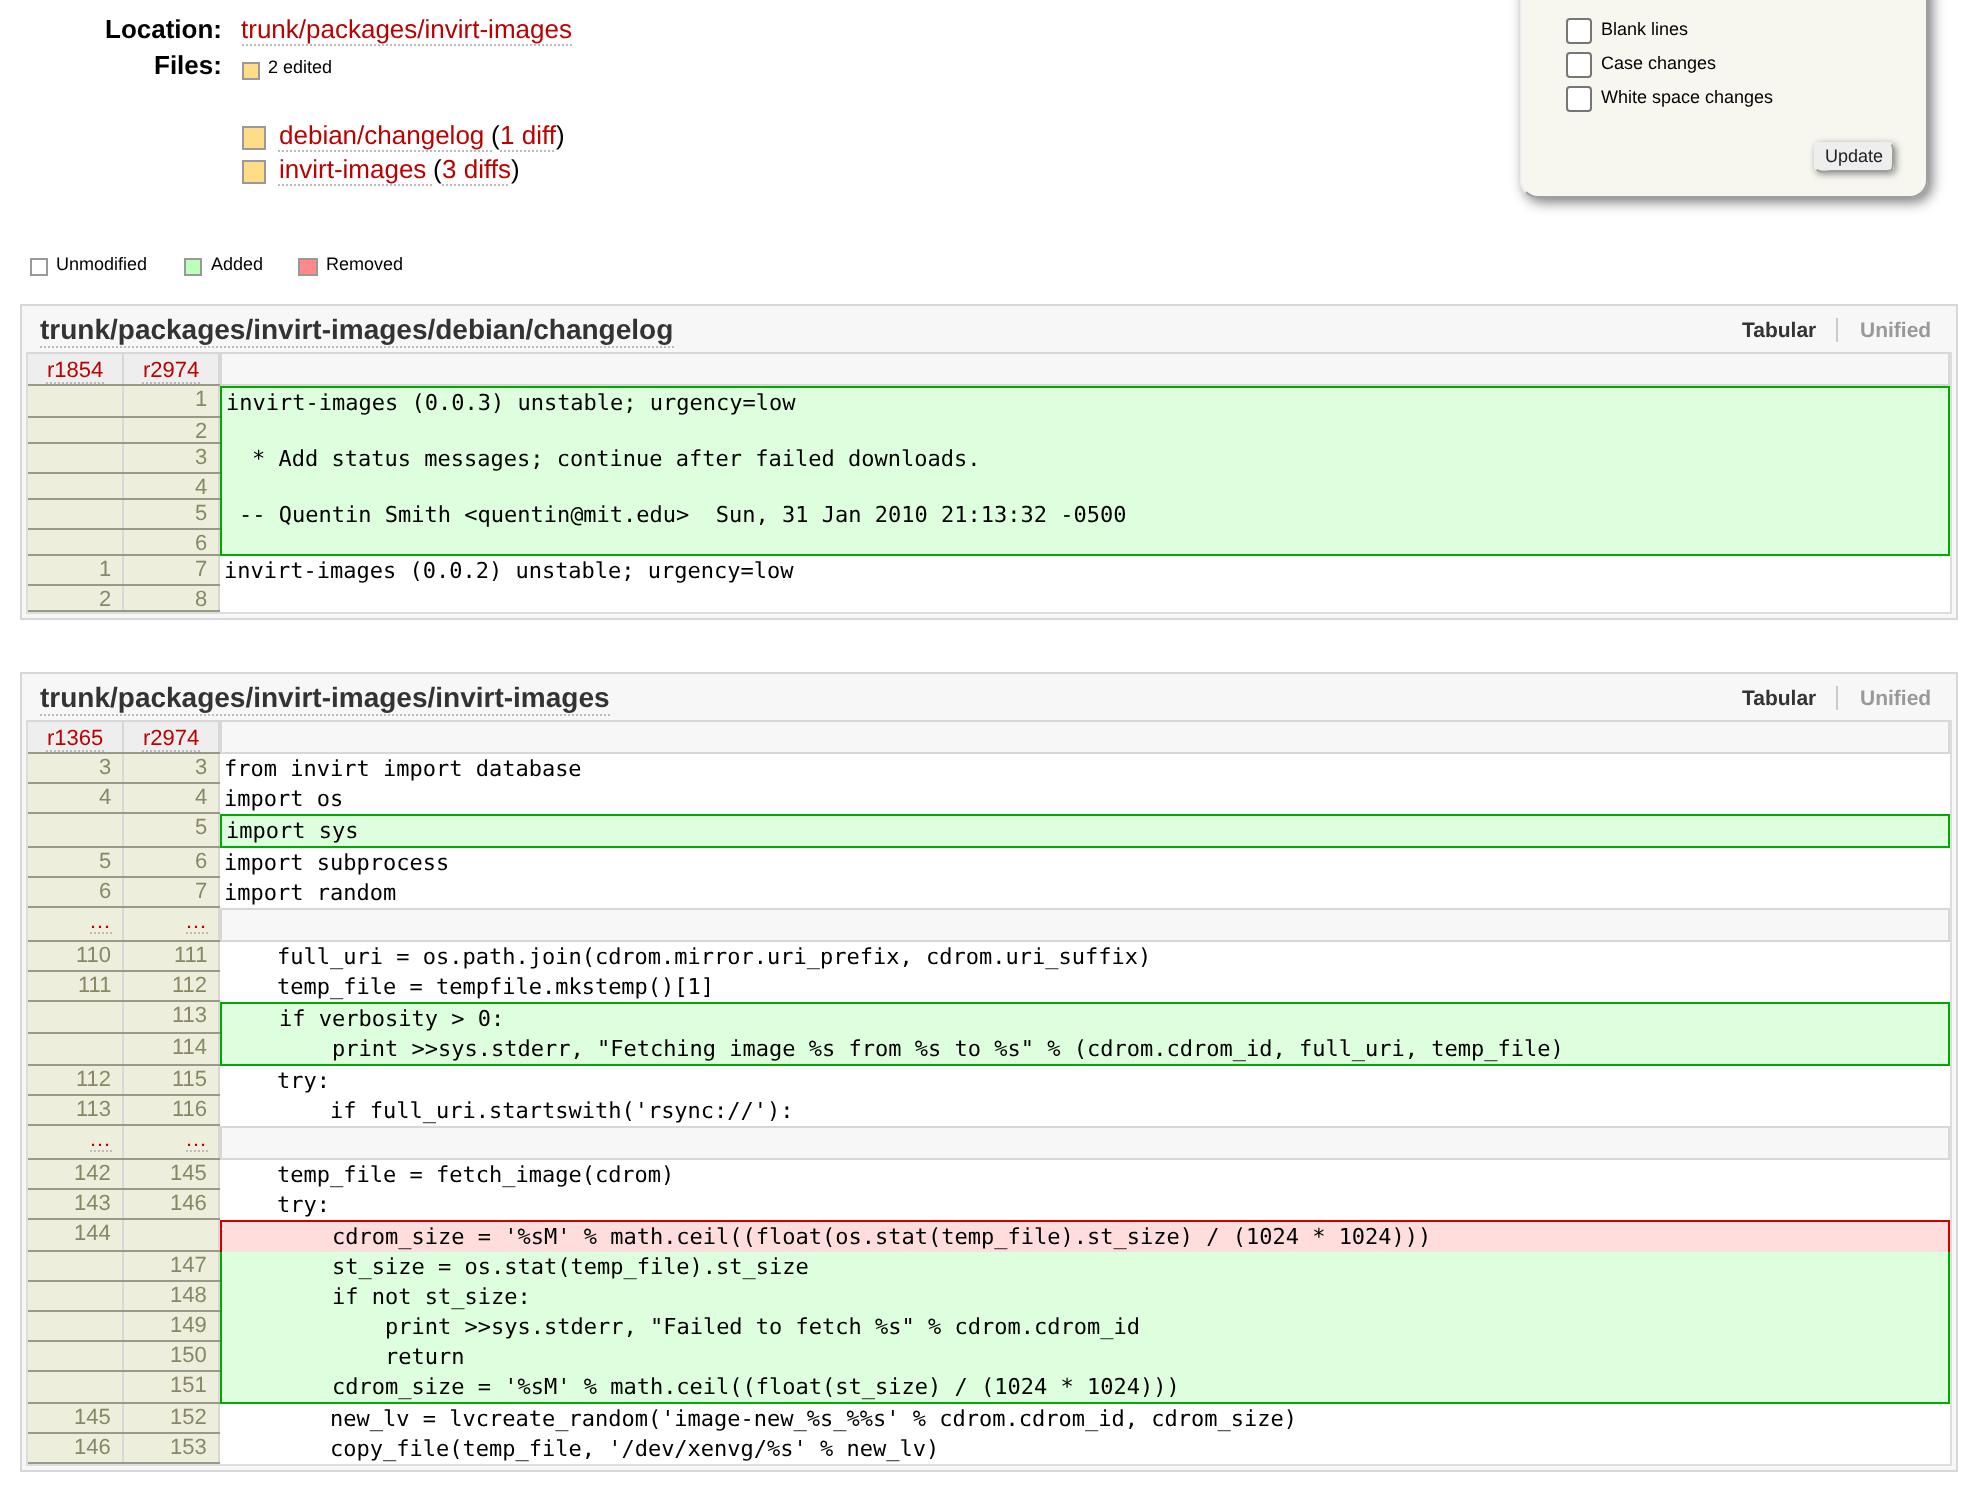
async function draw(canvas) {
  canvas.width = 1966
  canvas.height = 1490
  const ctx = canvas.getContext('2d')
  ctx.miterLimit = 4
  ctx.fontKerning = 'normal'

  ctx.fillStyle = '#fff'
  ctx.fillRect(0, 0, 1966, 1490)
  ctx.font = 'bold 26px Liberation Sans'
  ctx.fillStyle = '#000'
  ctx.fillText('Location:', 105, 38)
  ctx.font = '26px Liberation Sans'
  ctx.fillStyle = '#b00'
  ctx.fillText('trunk/packages/invirt-images', 241, 38)
  ctx.beginPath()
  ctx.moveTo(242, 45)
  ctx.lineTo(572, 45)
  ctx.strokeStyle = '#bbb'
  ctx.lineWidth = 2
  ctx.setLineDash([2, 2])
  ctx.stroke()
  ctx.font = 'bold 26px Liberation Sans'
  ctx.fillStyle = '#000'
  ctx.fillText('Files:', 154, 74)
  ctx.fillStyle = '#fd8'
  ctx.beginPath()
  ctx.rect(243, 63, 16, 16)
  ctx.fill()
  ctx.strokeStyle = '#999'
  ctx.setLineDash([])
  ctx.stroke()
  ctx.font = '18px Liberation Sans'
  ctx.fillStyle = '#000'
  ctx.fillText('2 edited', 268, 73)
  ctx.fillStyle = '#fd8'
  ctx.beginPath()
  ctx.rect(243, 127, 22, 22)
  ctx.fill()
  ctx.stroke()
  ctx.font = '26px Liberation Sans'
  ctx.fillStyle = '#b00'
  ctx.fillText('debian/changelog', 279, 144)
  ctx.beginPath()
  ctx.moveTo(278, 151)
  ctx.lineTo(492, 151)
  ctx.strokeStyle = '#bbb'
  ctx.setLineDash([2, 2])
  ctx.stroke()
  ctx.fillStyle = '#000'
  ctx.fillText('(', 491, 144)
  ctx.fillStyle = '#b00'
  ctx.fillText('1 diff', 500, 144)
  ctx.beginPath()
  ctx.moveTo(500, 151)
  ctx.lineTo(556, 151)
  ctx.stroke()
  ctx.fillStyle = '#000'
  ctx.fillText(')', 556, 144)
  ctx.fillStyle = '#fd8'
  ctx.beginPath()
  ctx.rect(243, 161, 22, 22)
  ctx.fill()
  ctx.strokeStyle = '#999'
  ctx.setLineDash([])
  ctx.stroke()
  ctx.fillStyle = '#b00'
  ctx.fillText('invirt-images', 279, 178)
  ctx.beginPath()
  ctx.moveTo(278, 185)
  ctx.lineTo(434, 185)
  ctx.strokeStyle = '#bbb'
  ctx.setLineDash([2, 2])
  ctx.stroke()
  ctx.fillStyle = '#000'
  ctx.fillText('(', 433, 178)
  ctx.fillStyle = '#b00'
  ctx.fillText('3 diffs', 442, 178)
  ctx.beginPath()
  ctx.moveTo(442, 185)
  ctx.lineTo(510, 185)
  ctx.stroke()
  ctx.fillStyle = '#000'
  ctx.fillText(')', 511, 178)
  ctx.fillStyle = '#777'
  ctx.filter = 'blur(6.5px)'
  ctx.beginPath()
  ctx.roundRect(1524, -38, 408, 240, 18)
  ctx.fill()
  ctx.filter = 'none'
  ctx.fillStyle = '#f7f7f0'
  ctx.beginPath()
  ctx.roundRect(1520, -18, 408, 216, 18)
  ctx.fill()
  ctx.beginPath()
  ctx.moveTo(1922, -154)
  ctx.bezierCurveTo(1925, -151, 1927, -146.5, 1927, -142)
  ctx.lineTo(1927, 180)
  ctx.bezierCurveTo(1927, 184.5, 1925, 189, 1922, 192)
  ctx.bezierCurveTo(1919, 195, 1914.5, 197, 1910, 197)
  ctx.lineTo(1538, 197)
  ctx.bezierCurveTo(1533.5, 197, 1529, 195, 1526, 192)
  ctx.strokeStyle = '#9f9f9f'
  ctx.setLineDash([])
  ctx.stroke()
  ctx.beginPath()
  ctx.moveTo(1526, 192)
  ctx.bezierCurveTo(1523, 189, 1521, 184.5, 1521, 180)
  ctx.lineTo(1521, -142)
  ctx.bezierCurveTo(1521, -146.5, 1523, -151, 1526, -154)
  ctx.bezierCurveTo(1529, -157, 1533.5, -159, 1538, -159)
  ctx.lineTo(1910, -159)
  ctx.bezierCurveTo(1914.5, -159, 1919, -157, 1922, -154)
  ctx.strokeStyle = '#eee'
  ctx.stroke()
  ctx.fillStyle = '#fff'
  ctx.beginPath()
  ctx.roundRect(1567, 19, 24, 24, 3)
  ctx.fill()
  ctx.strokeStyle = '#767676'
  ctx.stroke()
  ctx.font = '18px Liberation Sans'
  ctx.fillStyle = '#000'
  ctx.fillText('Blank lines', 1601, 35)
  ctx.fillStyle = '#fff'
  ctx.beginPath()
  ctx.roundRect(1567, 53, 24, 24, 3)
  ctx.fill()
  ctx.stroke()
  ctx.fillStyle = '#000'
  ctx.fillText('Case changes', 1601, 69)
  ctx.fillStyle = '#fff'
  ctx.beginPath()
  ctx.roundRect(1567, 87, 24, 24, 3)
  ctx.fill()
  ctx.stroke()
  ctx.fillStyle = '#000'
  ctx.fillText('White space changes', 1601, 103)
  ctx.fillStyle = '#888'
  ctx.filter = 'blur(3.5px)'
  ctx.beginPath()
  ctx.roundRect(1816, 144, 80, 30, 5)
  ctx.fill()
  ctx.filter = 'none'
  ctx.fillStyle = '#eee'
  ctx.beginPath()
  ctx.roundRect(1814, 142, 80, 30, 5)
  ctx.fill()
  ctx.beginPath()
  ctx.moveTo(1891.5, 144.5)
  ctx.bezierCurveTo(1894, 147, 1893, 154, 1893, 157)
  ctx.bezierCurveTo(1893, 173, 1894, 171, 1877, 171)
  ctx.lineTo(1831, 171)
  ctx.bezierCurveTo(1830.5, 171, 1819.5, 173, 1816.5, 169.5)
  ctx.strokeStyle = '#9f9f9f'
  ctx.stroke()
  ctx.beginPath()
  ctx.moveTo(1816.5, 169.5)
  ctx.bezierCurveTo(1814, 167, 1815, 160, 1815, 157)
  ctx.bezierCurveTo(1815, 141, 1814, 143, 1831, 143)
  ctx.lineTo(1877, 143)
  ctx.bezierCurveTo(1877.5, 143, 1888.5, 141, 1891.5, 144.5)
  ctx.strokeStyle = '#eee'
  ctx.stroke()
  ctx.fillStyle = '#222'
  ctx.fillText('Update', 1825, 162)
  ctx.strokeStyle = '#999'
  ctx.strokeRect(31, 259, 16, 16)
  ctx.fillStyle = '#000'
  ctx.fillText('Unmodified', 56, 270)
  ctx.fillStyle = '#bfb'
  ctx.beginPath()
  ctx.rect(185, 259, 16, 16)
  ctx.fill()
  ctx.stroke()
  ctx.fillStyle = '#000'
  ctx.fillText('Added', 211, 270)
  ctx.fillStyle = '#f88'
  ctx.beginPath()
  ctx.rect(299, 259, 18, 16)
  ctx.fill()
  ctx.stroke()
  ctx.fillStyle = '#000'
  ctx.fillText('Removed', 326, 270)
  ctx.fillStyle = '#f7f7f7'
  ctx.beginPath()
  ctx.rect(21, 305, 1936, 314)
  ctx.fill()
  ctx.strokeStyle = '#d7d7d7'
  ctx.stroke()
  ctx.font = 'bold 28px Liberation Sans'
  ctx.fillStyle = '#333'
  ctx.fillText('trunk/packages/invirt-images/debian/changelog', 40, 339)
  ctx.beginPath()
  ctx.moveTo(40, 347)
  ctx.lineTo(674, 347)
  ctx.strokeStyle = '#bbb'
  ctx.setLineDash([2, 2])
  ctx.stroke()
  ctx.font = 'bold 21px Liberation Sans'
  ctx.fillText('Tabular', 1742, 337)
  ctx.fillStyle = '#999'
  ctx.fillText('Unified', 1860, 337)
  ctx.fillStyle = '#ccc'
  ctx.fillRect(1836, 318, 2, 24)
  ctx.fillStyle = '#ddd'
  ctx.fillRect(1950, 352, 2, 262)
  ctx.fillRect(26, 612, 1926, 2)
  ctx.fillRect(26, 352, 2, 262)
  ctx.fillStyle = '#eee'
  ctx.fillRect(28, 354, 94, 30)
  ctx.fillStyle = '#d7d7d7'
  ctx.fillRect(28, 352, 192, 2)
  ctx.fillRect(122, 352, 2, 260)
  ctx.fillStyle = '#998'
  ctx.fillRect(28, 384, 96, 2)
  ctx.font = '22px Liberation Sans'
  ctx.fillStyle = '#b00'
  ctx.fillText('r1854', 47, 377)
  ctx.beginPath()
  ctx.moveTo(46, 383)
  ctx.lineTo(104, 383)
  ctx.stroke()
  ctx.fillStyle = '#eee'
  ctx.fillRect(124, 354, 94, 30)
  ctx.fillStyle = '#d7d7d7'
  ctx.fillRect(218, 352, 2, 260)
  ctx.fillStyle = '#998'
  ctx.fillRect(124, 384, 96, 2)
  ctx.fillStyle = '#b00'
  ctx.fillText('r2974', 143, 377)
  ctx.beginPath()
  ctx.moveTo(142, 383)
  ctx.lineTo(200, 383)
  ctx.stroke()
  ctx.strokeStyle = '#d7d7d7'
  ctx.setLineDash([])
  ctx.strokeRect(221, 353, 1728, 32)
  ctx.fillStyle = '#eed'
  ctx.fillRect(28, 386, 94, 30)
  ctx.fillStyle = '#998'
  ctx.fillRect(28, 416, 192, 2)
  ctx.fillStyle = '#eed'
  ctx.fillRect(124, 386, 94, 30)
  ctx.fillStyle = '#886'
  ctx.fillText('1', 195, 406)
  ctx.fillStyle = '#dfd'
  ctx.fillRect(222, 388, 1726, 166)
  ctx.fillStyle = '#0a0'
  ctx.fillRect(220, 386, 1730, 2)
  ctx.fillRect(1948, 386, 2, 170)
  ctx.fillRect(220, 386, 2, 144)
  ctx.font = '22px DejaVu Sans Mono'
  ctx.fillStyle = '#000'
  ctx.fillText('invirt-images (0.0.3) unstable; urgency=low', 226, 410)
  ctx.fillStyle = '#eed'
  ctx.fillRect(28, 418, 94, 24)
  ctx.fillStyle = '#998'
  ctx.fillRect(28, 442, 192, 2)
  ctx.fillStyle = '#eed'
  ctx.fillRect(124, 418, 94, 24)
  ctx.font = '22px Liberation Sans'
  ctx.fillStyle = '#886'
  ctx.fillText('2', 195, 438)
  ctx.fillStyle = '#eed'
  ctx.fillRect(28, 444, 94, 28)
  ctx.fillStyle = '#998'
  ctx.fillRect(28, 472, 192, 2)
  ctx.fillStyle = '#eed'
  ctx.fillRect(124, 444, 94, 28)
  ctx.fillStyle = '#886'
  ctx.fillText('3', 195, 464)
  ctx.font = '22px DejaVu Sans Mono'
  ctx.fillStyle = '#000'
  ctx.fillText('* Add status messages; continue after failed downloads.', 252, 466)
  ctx.fillStyle = '#eed'
  ctx.fillRect(28, 474, 94, 24)
  ctx.fillStyle = '#998'
  ctx.fillRect(28, 498, 192, 2)
  ctx.fillStyle = '#eed'
  ctx.fillRect(124, 474, 94, 24)
  ctx.font = '22px Liberation Sans'
  ctx.fillStyle = '#886'
  ctx.fillText('4', 195, 494)
  ctx.fillStyle = '#eed'
  ctx.fillRect(28, 500, 94, 28)
  ctx.fillStyle = '#998'
  ctx.fillRect(28, 528, 192, 2)
  ctx.fillStyle = '#eed'
  ctx.fillRect(124, 500, 94, 28)
  ctx.fillStyle = '#886'
  ctx.fillText('5', 195, 520)
  ctx.font = '22px DejaVu Sans Mono'
  ctx.fillStyle = '#000'
  ctx.fillText('-- Quentin Smith <quentin@mit.edu>  Sun, 31 Jan 2010 21:13:32 -0500', 239, 522)
  ctx.fillStyle = '#eed'
  ctx.fillRect(28, 530, 94, 24)
  ctx.fillStyle = '#998'
  ctx.fillRect(28, 554, 192, 2)
  ctx.fillStyle = '#0a0'
  ctx.fillRect(220, 554, 1730, 2)
  ctx.fillRect(220, 530, 2, 26)
  ctx.fillStyle = '#eed'
  ctx.fillRect(124, 530, 94, 24)
  ctx.font = '22px Liberation Sans'
  ctx.fillStyle = '#886'
  ctx.fillText('6', 195, 550)
  ctx.fillStyle = '#eed'
  ctx.fillRect(28, 556, 94, 28)
  ctx.fillStyle = '#998'
  ctx.fillRect(28, 584, 192, 2)
  ctx.fillStyle = '#886'
  ctx.fillText('1', 99, 576)
  ctx.fillStyle = '#eed'
  ctx.fillRect(124, 556, 94, 28)
  ctx.fillStyle = '#886'
  ctx.fillText('7', 195, 576)
  ctx.fillStyle = '#fff'
  ctx.fillRect(220, 556, 1730, 56)
  ctx.font = '22px DejaVu Sans Mono'
  ctx.fillStyle = '#000'
  ctx.fillText('invirt-images (0.0.2) unstable; urgency=low', 224, 578)
  ctx.fillStyle = '#eed'
  ctx.fillRect(28, 586, 94, 24)
  ctx.fillStyle = '#998'
  ctx.fillRect(28, 610, 192, 2)
  ctx.font = '22px Liberation Sans'
  ctx.fillStyle = '#886'
  ctx.fillText('2', 99, 606)
  ctx.fillStyle = '#eed'
  ctx.fillRect(124, 586, 94, 24)
  ctx.fillStyle = '#886'
  ctx.fillText('8', 195, 606)
  ctx.fillStyle = '#f7f7f7'
  ctx.beginPath()
  ctx.rect(21, 673, 1936, 798)
  ctx.fill()
  ctx.stroke()
  ctx.font = 'bold 28px Liberation Sans'
  ctx.fillStyle = '#333'
  ctx.fillText('trunk/packages/invirt-images/invirt-images', 40, 707)
  ctx.beginPath()
  ctx.moveTo(40, 715)
  ctx.lineTo(610, 715)
  ctx.strokeStyle = '#bbb'
  ctx.setLineDash([2, 2])
  ctx.stroke()
  ctx.font = 'bold 21px Liberation Sans'
  ctx.fillText('Tabular', 1742, 705)
  ctx.fillStyle = '#999'
  ctx.fillText('Unified', 1860, 705)
  ctx.fillStyle = '#ccc'
  ctx.fillRect(1836, 686, 2, 24)
  ctx.fillStyle = '#ddd'
  ctx.fillRect(1950, 720, 2, 746)
  ctx.fillRect(26, 1464, 1926, 2)
  ctx.fillRect(26, 720, 2, 746)
  ctx.fillStyle = '#eee'
  ctx.fillRect(28, 722, 94, 30)
  ctx.fillStyle = '#d7d7d7'
  ctx.fillRect(28, 720, 192, 2)
  ctx.fillRect(122, 720, 2, 744)
  ctx.fillStyle = '#998'
  ctx.fillRect(28, 752, 96, 2)
  ctx.font = '22px Liberation Sans'
  ctx.fillStyle = '#b00'
  ctx.fillText('r1365', 47, 745)
  ctx.beginPath()
  ctx.moveTo(46, 751)
  ctx.lineTo(104, 751)
  ctx.stroke()
  ctx.fillStyle = '#eee'
  ctx.fillRect(124, 722, 94, 30)
  ctx.fillStyle = '#d7d7d7'
  ctx.fillRect(218, 720, 2, 744)
  ctx.fillStyle = '#998'
  ctx.fillRect(124, 752, 96, 2)
  ctx.fillStyle = '#b00'
  ctx.fillText('r2974', 143, 745)
  ctx.beginPath()
  ctx.moveTo(142, 751)
  ctx.lineTo(200, 751)
  ctx.stroke()
  ctx.strokeStyle = '#d7d7d7'
  ctx.setLineDash([])
  ctx.strokeRect(221, 721, 1728, 32)
  ctx.fillStyle = '#eed'
  ctx.fillRect(28, 754, 94, 28)
  ctx.fillStyle = '#998'
  ctx.fillRect(28, 782, 192, 2)
  ctx.fillStyle = '#886'
  ctx.fillText('3', 99, 774)
  ctx.fillStyle = '#eed'
  ctx.fillRect(124, 754, 94, 28)
  ctx.fillStyle = '#886'
  ctx.fillText('3', 195, 774)
  ctx.fillStyle = '#fff'
  ctx.fillRect(220, 754, 1730, 60)
  ctx.font = '22px DejaVu Sans Mono'
  ctx.fillStyle = '#000'
  ctx.fillText('from invirt import database', 224, 776)
  ctx.fillStyle = '#eed'
  ctx.fillRect(28, 784, 94, 28)
  ctx.fillStyle = '#998'
  ctx.fillRect(28, 812, 192, 2)
  ctx.font = '22px Liberation Sans'
  ctx.fillStyle = '#886'
  ctx.fillText('4', 99, 804)
  ctx.fillStyle = '#eed'
  ctx.fillRect(124, 784, 94, 28)
  ctx.fillStyle = '#886'
  ctx.fillText('4', 195, 804)
  ctx.font = '22px DejaVu Sans Mono'
  ctx.fillStyle = '#000'
  ctx.fillText('import os', 224, 806)
  ctx.fillStyle = '#eed'
  ctx.fillRect(28, 814, 94, 32)
  ctx.fillStyle = '#998'
  ctx.fillRect(28, 846, 192, 2)
  ctx.fillStyle = '#eed'
  ctx.fillRect(124, 814, 94, 32)
  ctx.font = '22px Liberation Sans'
  ctx.fillStyle = '#886'
  ctx.fillText('5', 195, 834)
  ctx.fillStyle = '#dfd'
  ctx.beginPath()
  ctx.rect(221, 815, 1728, 32)
  ctx.fill()
  ctx.strokeStyle = '#0a0'
  ctx.stroke()
  ctx.font = '22px DejaVu Sans Mono'
  ctx.fillStyle = '#000'
  ctx.fillText('import sys', 226, 838)
  ctx.fillStyle = '#eed'
  ctx.fillRect(28, 848, 94, 28)
  ctx.fillStyle = '#998'
  ctx.fillRect(28, 876, 192, 2)
  ctx.font = '22px Liberation Sans'
  ctx.fillStyle = '#886'
  ctx.fillText('5', 99, 868)
  ctx.fillStyle = '#eed'
  ctx.fillRect(124, 848, 94, 28)
  ctx.fillStyle = '#886'
  ctx.fillText('6', 195, 868)
  ctx.fillStyle = '#fff'
  ctx.fillRect(220, 848, 1730, 60)
  ctx.font = '22px DejaVu Sans Mono'
  ctx.fillStyle = '#000'
  ctx.fillText('import subprocess', 224, 870)
  ctx.fillStyle = '#eed'
  ctx.fillRect(28, 878, 94, 28)
  ctx.fillStyle = '#998'
  ctx.fillRect(28, 906, 192, 2)
  ctx.font = '22px Liberation Sans'
  ctx.fillStyle = '#886'
  ctx.fillText('6', 99, 898)
  ctx.fillStyle = '#eed'
  ctx.fillRect(124, 878, 94, 28)
  ctx.fillStyle = '#886'
  ctx.fillText('7', 195, 898)
  ctx.font = '22px DejaVu Sans Mono'
  ctx.fillStyle = '#000'
  ctx.fillText('import random', 224, 900)
  ctx.fillStyle = '#eed'
  ctx.fillRect(28, 908, 94, 32)
  ctx.fillStyle = '#998'
  ctx.fillRect(28, 940, 192, 2)
  ctx.font = '22px Liberation Sans'
  ctx.fillStyle = '#b00'
  ctx.fillText('…', 89, 928)
  ctx.beginPath()
  ctx.moveTo(90, 933)
  ctx.lineTo(112, 933)
  ctx.strokeStyle = '#bbb'
  ctx.setLineDash([2, 2])
  ctx.stroke()
  ctx.fillStyle = '#eed'
  ctx.fillRect(124, 908, 94, 32)
  ctx.fillStyle = '#b00'
  ctx.fillText('…', 185, 928)
  ctx.beginPath()
  ctx.moveTo(186, 933)
  ctx.lineTo(208, 933)
  ctx.stroke()
  ctx.strokeStyle = '#d7d7d7'
  ctx.setLineDash([])
  ctx.strokeRect(221, 909, 1728, 32)
  ctx.fillStyle = '#eed'
  ctx.fillRect(28, 942, 94, 28)
  ctx.fillStyle = '#998'
  ctx.fillRect(28, 970, 192, 2)
  ctx.fillStyle = '#886'
  ctx.fillText('110', 76, 962)
  ctx.fillStyle = '#eed'
  ctx.fillRect(124, 942, 94, 28)
  ctx.fillStyle = '#886'
  ctx.fillText('111', 174, 962)
  ctx.fillStyle = '#fff'
  ctx.fillRect(220, 942, 1730, 60)
  ctx.font = '22px DejaVu Sans Mono'
  ctx.fillStyle = '#000'
  ctx.fillText('full_uri = os.path.join(cdrom.mirror.uri_prefix, cdrom.uri_suffix)', 277, 964)
  ctx.fillStyle = '#eed'
  ctx.fillRect(28, 972, 94, 28)
  ctx.fillStyle = '#998'
  ctx.fillRect(28, 1000, 192, 2)
  ctx.font = '22px Liberation Sans'
  ctx.fillStyle = '#886'
  ctx.fillText('111', 78, 992)
  ctx.fillStyle = '#eed'
  ctx.fillRect(124, 972, 94, 28)
  ctx.fillStyle = '#886'
  ctx.fillText('112', 172, 992)
  ctx.font = '22px DejaVu Sans Mono'
  ctx.fillStyle = '#000'
  ctx.fillText('temp_file = tempfile.mkstemp()[1]', 277, 994)
  ctx.fillStyle = '#eed'
  ctx.fillRect(28, 1002, 94, 30)
  ctx.fillStyle = '#998'
  ctx.fillRect(28, 1032, 192, 2)
  ctx.fillStyle = '#eed'
  ctx.fillRect(124, 1002, 94, 30)
  ctx.font = '22px Liberation Sans'
  ctx.fillStyle = '#886'
  ctx.fillText('113', 172, 1022)
  ctx.fillStyle = '#dfd'
  ctx.fillRect(222, 1004, 1726, 60)
  ctx.fillStyle = '#0a0'
  ctx.fillRect(220, 1002, 1730, 2)
  ctx.fillRect(1948, 1002, 2, 64)
  ctx.fillRect(220, 1002, 2, 32)
  ctx.font = '22px DejaVu Sans Mono'
  ctx.fillStyle = '#000'
  ctx.fillText('if verbosity > 0:', 279, 1026)
  ctx.fillStyle = '#eed'
  ctx.fillRect(28, 1034, 94, 30)
  ctx.fillStyle = '#998'
  ctx.fillRect(28, 1064, 192, 2)
  ctx.fillStyle = '#eed'
  ctx.fillRect(124, 1034, 94, 30)
  ctx.font = '22px Liberation Sans'
  ctx.fillStyle = '#886'
  ctx.fillText('114', 172, 1054)
  ctx.fillStyle = '#0a0'
  ctx.fillRect(220, 1064, 1730, 2)
  ctx.fillRect(220, 1034, 2, 32)
  ctx.font = '22px DejaVu Sans Mono'
  ctx.fillStyle = '#000'
  ctx.fillText('print >>sys.stderr, "Fetching image %s from %s to %s" % (cdrom.cdrom_id, full_uri, temp_file)', 332, 1056)
  ctx.fillStyle = '#eed'
  ctx.fillRect(28, 1066, 94, 28)
  ctx.fillStyle = '#998'
  ctx.fillRect(28, 1094, 192, 2)
  ctx.font = '22px Liberation Sans'
  ctx.fillStyle = '#886'
  ctx.fillText('112', 76, 1086)
  ctx.fillStyle = '#eed'
  ctx.fillRect(124, 1066, 94, 28)
  ctx.fillStyle = '#886'
  ctx.fillText('115', 172, 1086)
  ctx.fillStyle = '#fff'
  ctx.fillRect(220, 1066, 1730, 60)
  ctx.font = '22px DejaVu Sans Mono'
  ctx.fillStyle = '#000'
  ctx.fillText('try:', 277, 1088)
  ctx.fillStyle = '#eed'
  ctx.fillRect(28, 1096, 94, 28)
  ctx.fillStyle = '#998'
  ctx.fillRect(28, 1124, 192, 2)
  ctx.font = '22px Liberation Sans'
  ctx.fillStyle = '#886'
  ctx.fillText('113', 76, 1116)
  ctx.fillStyle = '#eed'
  ctx.fillRect(124, 1096, 94, 28)
  ctx.fillStyle = '#886'
  ctx.fillText('116', 172, 1116)
  ctx.font = '22px DejaVu Sans Mono'
  ctx.fillStyle = '#000'
  ctx.fillText('if full_uri.startswith(\'rsync://\'):', 330, 1118)
  ctx.fillStyle = '#eed'
  ctx.fillRect(28, 1126, 94, 32)
  ctx.fillStyle = '#998'
  ctx.fillRect(28, 1158, 192, 2)
  ctx.font = '22px Liberation Sans'
  ctx.fillStyle = '#b00'
  ctx.fillText('…', 89, 1146)
  ctx.beginPath()
  ctx.moveTo(90, 1151)
  ctx.lineTo(112, 1151)
  ctx.strokeStyle = '#bbb'
  ctx.setLineDash([2, 2])
  ctx.stroke()
  ctx.fillStyle = '#eed'
  ctx.fillRect(124, 1126, 94, 32)
  ctx.fillStyle = '#b00'
  ctx.fillText('…', 185, 1146)
  ctx.beginPath()
  ctx.moveTo(186, 1151)
  ctx.lineTo(208, 1151)
  ctx.stroke()
  ctx.strokeStyle = '#d7d7d7'
  ctx.setLineDash([])
  ctx.strokeRect(221, 1127, 1728, 32)
  ctx.fillStyle = '#eed'
  ctx.fillRect(28, 1160, 94, 28)
  ctx.fillStyle = '#998'
  ctx.fillRect(28, 1188, 192, 2)
  ctx.fillStyle = '#886'
  ctx.fillText('142', 74, 1180)
  ctx.fillStyle = '#eed'
  ctx.fillRect(124, 1160, 94, 28)
  ctx.fillStyle = '#886'
  ctx.fillText('145', 170, 1180)
  ctx.fillStyle = '#fff'
  ctx.fillRect(220, 1160, 1730, 60)
  ctx.font = '22px DejaVu Sans Mono'
  ctx.fillStyle = '#000'
  ctx.fillText('temp_file = fetch_image(cdrom)', 277, 1182)
  ctx.fillStyle = '#eed'
  ctx.fillRect(28, 1190, 94, 28)
  ctx.fillStyle = '#998'
  ctx.fillRect(28, 1218, 192, 2)
  ctx.font = '22px Liberation Sans'
  ctx.fillStyle = '#886'
  ctx.fillText('143', 74, 1210)
  ctx.fillStyle = '#eed'
  ctx.fillRect(124, 1190, 94, 28)
  ctx.fillStyle = '#886'
  ctx.fillText('146', 170, 1210)
  ctx.font = '22px DejaVu Sans Mono'
  ctx.fillStyle = '#000'
  ctx.fillText('try:', 277, 1212)
  ctx.fillStyle = '#eed'
  ctx.fillRect(28, 1220, 94, 30)
  ctx.fillStyle = '#998'
  ctx.fillRect(28, 1250, 192, 2)
  ctx.font = '22px Liberation Sans'
  ctx.fillStyle = '#886'
  ctx.fillText('144', 74, 1240)
  ctx.fillStyle = '#eed'
  ctx.fillRect(124, 1220, 94, 30)
  ctx.fillStyle = '#fdd'
  ctx.fillRect(222, 1222, 1726, 30)
  ctx.fillStyle = '#c00'
  ctx.fillRect(220, 1220, 1730, 2)
  ctx.fillRect(1948, 1220, 2, 32)
  ctx.fillRect(220, 1220, 2, 32)
  ctx.font = '22px DejaVu Sans Mono'
  ctx.fillStyle = '#000'
  ctx.fillText('cdrom_size = \'%sM\' % math.ceil((float(os.stat(temp_file).st_size) / (1024 * 1024)))', 332, 1244)
  ctx.fillStyle = '#eed'
  ctx.fillRect(28, 1252, 94, 28)
  ctx.fillStyle = '#998'
  ctx.fillRect(28, 1280, 192, 2)
  ctx.fillStyle = '#eed'
  ctx.fillRect(124, 1252, 94, 28)
  ctx.font = '22px Liberation Sans'
  ctx.fillStyle = '#886'
  ctx.fillText('147', 170, 1272)
  ctx.fillStyle = '#dfd'
  ctx.fillRect(222, 1252, 1726, 150)
  ctx.fillStyle = '#0a0'
  ctx.fillRect(1948, 1252, 2, 152)
  ctx.fillRect(220, 1252, 2, 120)
  ctx.font = '22px DejaVu Sans Mono'
  ctx.fillStyle = '#000'
  ctx.fillText('st_size = os.stat(temp_file).st_size', 332, 1274)
  ctx.fillStyle = '#eed'
  ctx.fillRect(28, 1282, 94, 28)
  ctx.fillStyle = '#998'
  ctx.fillRect(28, 1310, 192, 2)
  ctx.fillStyle = '#eed'
  ctx.fillRect(124, 1282, 94, 28)
  ctx.font = '22px Liberation Sans'
  ctx.fillStyle = '#886'
  ctx.fillText('148', 170, 1302)
  ctx.font = '22px DejaVu Sans Mono'
  ctx.fillStyle = '#000'
  ctx.fillText('if not st_size:', 332, 1304)
  ctx.fillStyle = '#eed'
  ctx.fillRect(28, 1312, 94, 28)
  ctx.fillStyle = '#998'
  ctx.fillRect(28, 1340, 192, 2)
  ctx.fillStyle = '#eed'
  ctx.fillRect(124, 1312, 94, 28)
  ctx.font = '22px Liberation Sans'
  ctx.fillStyle = '#886'
  ctx.fillText('149', 170, 1332)
  ctx.font = '22px DejaVu Sans Mono'
  ctx.fillStyle = '#000'
  ctx.fillText('print >>sys.stderr, "Failed to fetch %s" % cdrom.cdrom_id', 385, 1334)
  ctx.fillStyle = '#eed'
  ctx.fillRect(28, 1342, 94, 28)
  ctx.fillStyle = '#998'
  ctx.fillRect(28, 1370, 192, 2)
  ctx.fillStyle = '#eed'
  ctx.fillRect(124, 1342, 94, 28)
  ctx.font = '22px Liberation Sans'
  ctx.fillStyle = '#886'
  ctx.fillText('150', 170, 1362)
  ctx.font = '22px DejaVu Sans Mono'
  ctx.fillStyle = '#000'
  ctx.fillText('return', 385, 1364)
  ctx.fillStyle = '#eed'
  ctx.fillRect(28, 1372, 94, 30)
  ctx.fillStyle = '#998'
  ctx.fillRect(28, 1402, 192, 2)
  ctx.fillStyle = '#eed'
  ctx.fillRect(124, 1372, 94, 30)
  ctx.font = '22px Liberation Sans'
  ctx.fillStyle = '#886'
  ctx.fillText('151', 170, 1392)
  ctx.fillStyle = '#0a0'
  ctx.fillRect(220, 1402, 1730, 2)
  ctx.fillRect(220, 1372, 2, 32)
  ctx.font = '22px DejaVu Sans Mono'
  ctx.fillStyle = '#000'
  ctx.fillText('cdrom_size = \'%sM\' % math.ceil((float(st_size) / (1024 * 1024)))', 332, 1394)
  ctx.fillStyle = '#eed'
  ctx.fillRect(28, 1404, 94, 28)
  ctx.fillStyle = '#998'
  ctx.fillRect(28, 1432, 192, 2)
  ctx.font = '22px Liberation Sans'
  ctx.fillStyle = '#886'
  ctx.fillText('145', 74, 1424)
  ctx.fillStyle = '#eed'
  ctx.fillRect(124, 1404, 94, 28)
  ctx.fillStyle = '#886'
  ctx.fillText('152', 170, 1424)
  ctx.fillStyle = '#fff'
  ctx.fillRect(220, 1404, 1730, 60)
  ctx.font = '22px DejaVu Sans Mono'
  ctx.fillStyle = '#000'
  ctx.fillText('new_lv = lvcreate_random(\'image-new_%s_%%s\' % cdrom.cdrom_id, cdrom_size)', 330, 1426)
  ctx.fillStyle = '#eed'
  ctx.fillRect(28, 1434, 94, 28)
  ctx.fillStyle = '#998'
  ctx.fillRect(28, 1462, 192, 2)
  ctx.font = '22px Liberation Sans'
  ctx.fillStyle = '#886'
  ctx.fillText('146', 74, 1454)
  ctx.fillStyle = '#eed'
  ctx.fillRect(124, 1434, 94, 28)
  ctx.fillStyle = '#886'
  ctx.fillText('153', 170, 1454)
  ctx.font = '22px DejaVu Sans Mono'
  ctx.fillStyle = '#000'
  ctx.fillText('copy_file(temp_file, \'/dev/xenvg/%s\' % new_lv)', 330, 1456)
}

draw(document.querySelector('canvas'))
